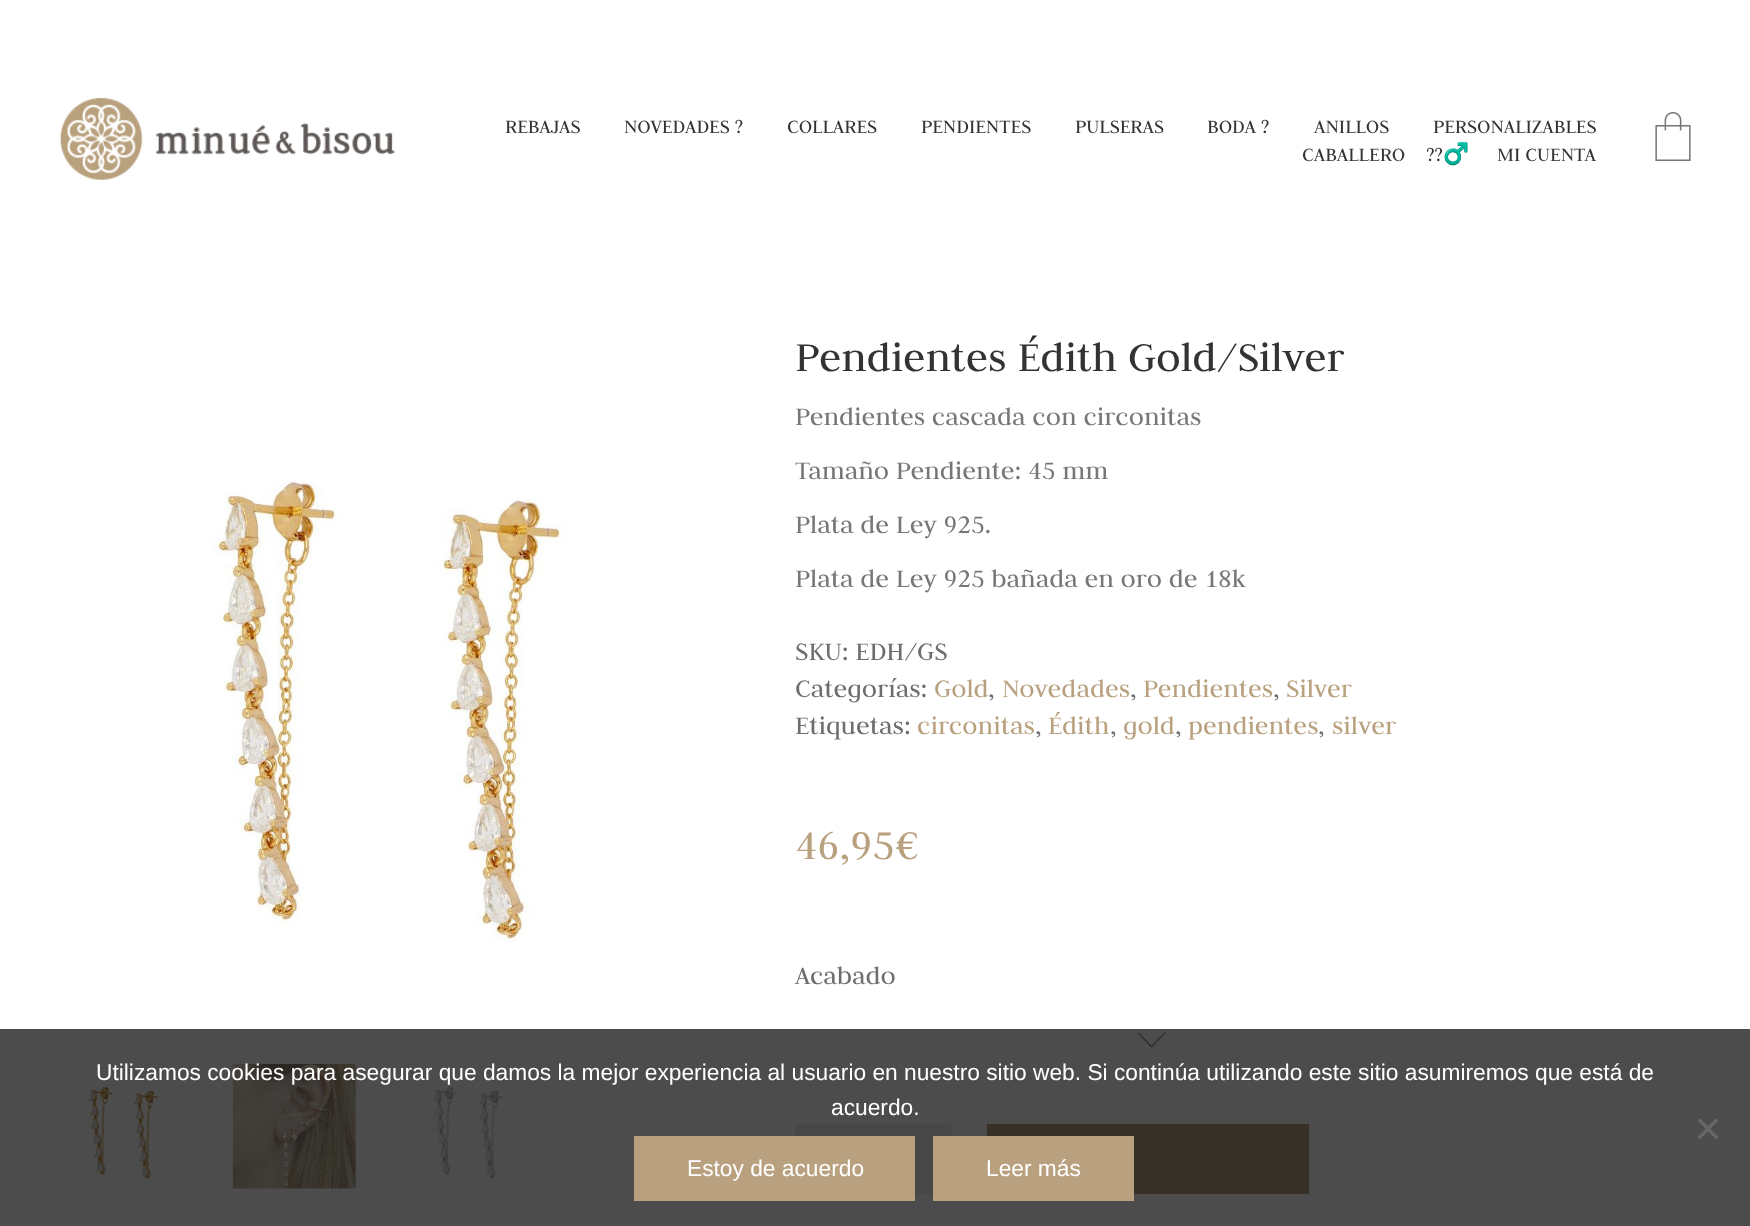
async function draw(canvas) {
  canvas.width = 1750
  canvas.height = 1226
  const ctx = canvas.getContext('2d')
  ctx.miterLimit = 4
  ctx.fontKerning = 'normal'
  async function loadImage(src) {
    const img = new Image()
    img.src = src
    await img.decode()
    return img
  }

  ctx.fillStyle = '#fff'
  ctx.fillRect(0, 0, 1750, 1226)
  ctx.drawImage(await loadImage('image0.png'), 60, 97, 335, 83)
  ctx.font = '21px Judson'
  ctx.fillStyle = '#333'
  ctx.fillText('REBAJAS', 505, 133)
  ctx.fillText('NOVEDADES ?', 624, 133)
  ctx.fillText('COLLARES', 787, 133)
  ctx.fillText('PENDIENTES', 921, 133)
  ctx.fillText('PULSERAS', 1075, 133)
  ctx.fillText('BODA ?', 1207, 133)
  ctx.fillText('ANILLOS', 1314, 133)
  ctx.fillText('PERSONALIZABLES', 1433, 133)
  ctx.wordSpacing = '16px'
  ctx.fillText('CABALLERO ??‍♂️', 1302, 161)
  ctx.wordSpacing = '0px'
  ctx.fillText('MI CUENTA', 1497, 161)
  ctx.drawImage(await loadImage('image1.png'), 1655, 112, 36, 49)
  ctx.drawImage(await loadImage('image2.png'), 212, 478, 353, 464)
  ctx.drawImage(await loadImage('image3.png'), 89, 1086, 69, 93)
  ctx.drawImage(await loadImage('image4.png'), 232, 1063, 124, 126)
  ctx.drawImage(await loadImage('image5.png'), 434, 1087, 69, 92)
  ctx.font = '45.5px Judson'
  ctx.fillText('Pendientes Édith Gold/Silver', 795, 371)
  ctx.font = '28px Judson'
  ctx.fillStyle = '#777'
  ctx.fillText('Pendientes cascada con circonitas', 795, 425)
  ctx.fillText('Tamaño Pendiente: 45 mm', 795, 479)
  ctx.fillText('Plata de Ley 925.', 795, 533)
  ctx.fillText('Plata de Ley 925 bañada en oro de 18k', 795, 587)
  ctx.fillStyle = '#6d6d6d'
  ctx.fillText('SKU: EDH/GS', 795, 660)
  ctx.fillText('Categorías:', 795, 697)
  ctx.fillStyle = '#b9a17f'
  ctx.fillText('Gold', 934, 697)
  ctx.fillStyle = '#6d6d6d'
  ctx.fillText(',', 988, 697)
  ctx.fillStyle = '#b9a17f'
  ctx.fillText('Novedades', 1002, 697)
  ctx.fillStyle = '#6d6d6d'
  ctx.fillText(',', 1130, 697)
  ctx.fillStyle = '#b9a17f'
  ctx.fillText('Pendientes', 1143, 697)
  ctx.fillStyle = '#6d6d6d'
  ctx.fillText(',', 1273, 697)
  ctx.fillStyle = '#b9a17f'
  ctx.fillText('Silver', 1286, 697)
  ctx.fillStyle = '#6d6d6d'
  ctx.fillText('Etiquetas:', 795, 734)
  ctx.fillStyle = '#b9a17f'
  ctx.fillText('circonitas', 917, 734)
  ctx.fillStyle = '#6d6d6d'
  ctx.fillText(',', 1035, 734)
  ctx.fillStyle = '#b9a17f'
  ctx.fillText('Édith', 1048, 734)
  ctx.fillStyle = '#6d6d6d'
  ctx.fillText(',', 1110, 734)
  ctx.fillStyle = '#b9a17f'
  ctx.fillText('gold', 1123, 734)
  ctx.fillStyle = '#6d6d6d'
  ctx.fillText(',', 1175, 734)
  ctx.fillStyle = '#b9a17f'
  ctx.fillText('pendientes', 1188, 734)
  ctx.fillStyle = '#6d6d6d'
  ctx.fillText(',', 1318, 734)
  ctx.fillStyle = '#b9a17f'
  ctx.fillText('silver', 1332, 734)
  ctx.font = '45.5px Judson'
  ctx.fillText('46,95€', 795, 859)
  ctx.font = '28px Judson'
  ctx.fillStyle = '#6d6d6d'
  ctx.fillText('Acabado', 795, 984)
  ctx.fillStyle = '#777'
  ctx.beginPath()
  ctx.moveTo(1151.5, 1047.5)
  ctx.lineTo(1137.5, 1033)
  ctx.lineTo(1138.5, 1032.5)
  ctx.lineTo(1151.5, 1046)
  ctx.lineTo(1164.5, 1032.5)
  ctx.lineTo(1165.5, 1033)
  ctx.closePath()
  ctx.fill()
  ctx.fillStyle = '#eee'
  ctx.beginPath()
  ctx.roundRect(795, 1124, 157, 70, 4)
  ctx.fill()
  ctx.fillStyle = '#b9a17f'
  ctx.fillRect(987, 1124, 322, 70)
  ctx.fillStyle = '#000000b3'
  ctx.fillRect(0, 1029, 1750, 197)
  ctx.font = '22.75px Liberation Sans'
  ctx.fillStyle = '#fff'
  ctx.fillText('Utilizamos cookies para asegurar que damos la mejor experiencia al usuario en nuestro sitio web. Si continúa utilizando este sitio asumiremos que está de', 96, 1080)
  ctx.fillText('acuerdo.', 831, 1115)
  ctx.fillStyle = '#666'
  ctx.beginPath()
  ctx.moveTo(1716, 1118)
  ctx.lineTo(1718.5, 1120.5)
  ctx.lineTo(1700, 1139.5)
  ctx.lineTo(1697.5, 1137)
  ctx.closePath()
  ctx.fill()
  ctx.beginPath()
  ctx.moveTo(1697.5, 1120.5)
  ctx.lineTo(1700, 1118)
  ctx.lineTo(1718.5, 1137)
  ctx.lineTo(1716, 1139.5)
  ctx.closePath()
  ctx.fill()
  ctx.fillStyle = '#b9a17f'
  ctx.fillRect(634, 1136, 281, 65)
  ctx.fillStyle = '#fff'
  ctx.fillText('Estoy de acuerdo', 687, 1176)
  ctx.fillStyle = '#b9a17f'
  ctx.fillRect(933, 1136, 201, 65)
  ctx.fillStyle = '#fff'
  ctx.fillText('Leer más', 986, 1176)
}

draw(document.querySelector('canvas'))
